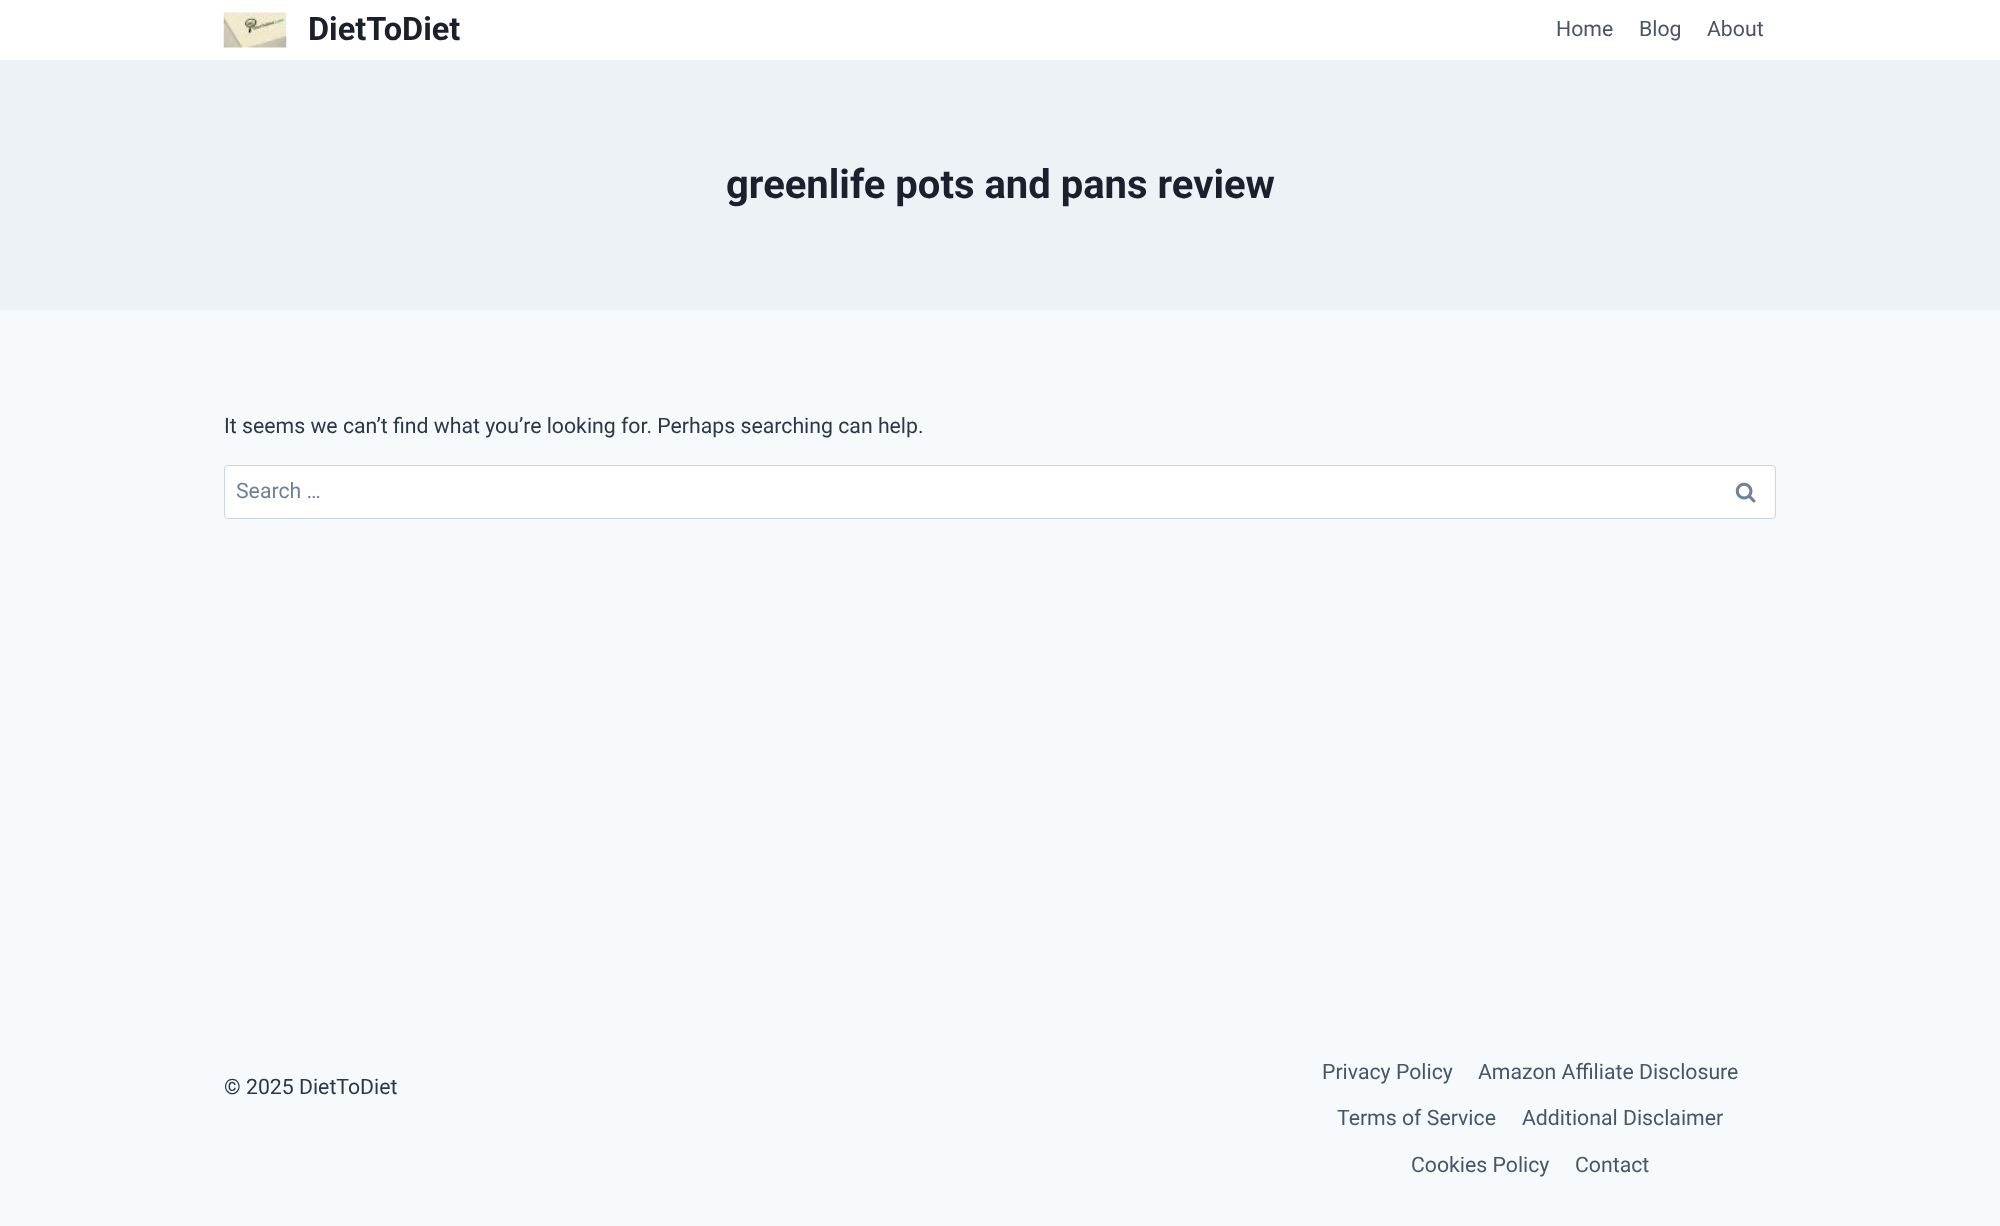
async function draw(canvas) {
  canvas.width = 2000
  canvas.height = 1226
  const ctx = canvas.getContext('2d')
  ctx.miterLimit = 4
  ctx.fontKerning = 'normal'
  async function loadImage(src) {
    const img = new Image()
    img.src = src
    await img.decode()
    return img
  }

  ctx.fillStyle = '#f7fafc'
  ctx.fillRect(0, 0, 2000, 1226)
  ctx.fillStyle = '#fff'
  ctx.fillRect(0, 0, 2000, 60)
  ctx.drawImage(await loadImage('image0.png'), 223, 12, 64, 36)
  ctx.font = 'bold 32.5px Roboto'
  ctx.fillStyle = '#1a202c'
  ctx.fillText('DietToDiet', 308, 40)
  ctx.font = '21.25px Roboto'
  ctx.fillStyle = '#4a5568'
  ctx.fillText('Home', 1556, 36)
  ctx.fillText('Blog', 1639, 36)
  ctx.fillText('About', 1707, 36)
  ctx.fillStyle = '#edf2f7'
  ctx.fillRect(0, 60, 2000, 250)
  ctx.font = 'bold 40px Roboto'
  ctx.fillStyle = '#1a202c'
  ctx.fillText('greenlife pots and pans review', 726, 198)
  ctx.font = '21.25px Roboto'
  ctx.fillStyle = '#2d3748'
  ctx.fillText('It seems we can’t find what you’re looking for. Perhaps searching can help.', 224, 433)
  ctx.fillStyle = '#fff'
  ctx.beginPath()
  ctx.roundRect(224.5, 465.5, 1551, 53, 3.5)
  ctx.fill()
  ctx.strokeStyle = '#cbd5e0'
  ctx.stroke()
  ctx.fillStyle = '#718096'
  ctx.fillText('Search …', 236, 498)
  ctx.drawImage(await loadImage('image1.png'), 1735, 482, 21, 21)
  ctx.fillStyle = '#2d3748'
  ctx.fillText('© 2025 DietToDiet', 224, 1094)
  ctx.fillStyle = '#4a5568'
  ctx.fillText('Privacy Policy', 1322, 1079)
  ctx.fillText('Amazon Affiliate Disclosure', 1478, 1079)
  ctx.fillText('Terms of Service', 1337, 1125)
  ctx.fillText('Additional Disclaimer', 1522, 1125)
  ctx.fillText('Cookies Policy', 1411, 1172)
  ctx.fillText('Contact', 1575, 1172)
}

draw(document.querySelector('canvas'))
